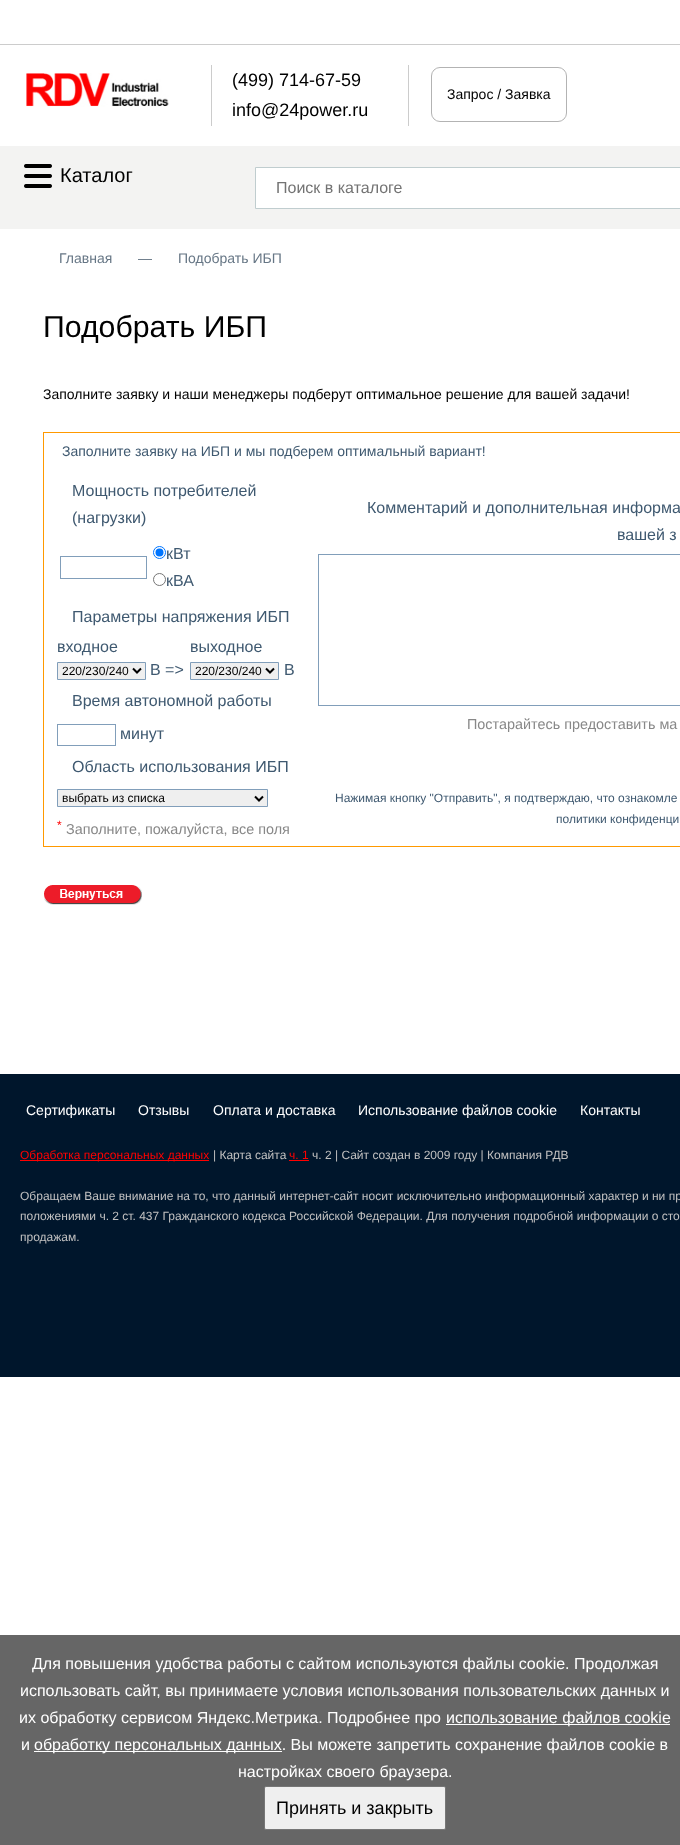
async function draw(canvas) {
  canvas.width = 680
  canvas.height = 1845
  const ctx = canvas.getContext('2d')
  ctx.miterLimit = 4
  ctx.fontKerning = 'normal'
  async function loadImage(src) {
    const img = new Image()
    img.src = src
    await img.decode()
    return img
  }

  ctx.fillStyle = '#fff'
  ctx.fillRect(0, 0, 680, 1845)
  ctx.fillStyle = '#ccc'
  ctx.fillRect(0, 44, 680, 1)
  ctx.fillRect(211, 65, 1, 61)
  ctx.drawImage(await loadImage('image0.png'), 26, 73, 143, 34)
  ctx.fillRect(408, 65, 1, 61)
  ctx.font = '18px Liberation Sans'
  ctx.fillStyle = '#000'
  ctx.fillText('(499) 714-67-59', 232, 86)
  ctx.fillText('info@24power.ru', 232, 116)
  ctx.beginPath()
  ctx.roundRect(431.5, 67.5, 135, 54, 8.5)
  ctx.strokeStyle = '#b3b3b3'
  ctx.stroke()
  ctx.font = '14px Liberation Sans'
  ctx.fillText('Запрос / Заявка', 447, 99)
  ctx.fillStyle = '#f3f3f2'
  ctx.fillRect(0, 146, 680, 5)
  ctx.fillRect(0, 151, 680, 78)
  ctx.drawImage(await loadImage('image1.png'), 24, 164, 28, 24)
  ctx.font = '20px Liberation Sans'
  ctx.fillStyle = '#000'
  ctx.fillText('Каталог', 60, 182)
  ctx.fillStyle = '#fff'
  ctx.beginPath()
  ctx.rect(255.5, 167.5, 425, 41)
  ctx.fill()
  ctx.strokeStyle = '#c0cdcf'
  ctx.stroke()
  ctx.font = '16px Liberation Sans'
  ctx.fillStyle = '#737373'
  ctx.fillText('Поиск в каталоге', 276, 193)
  ctx.font = '14px Liberation Sans'
  ctx.fillStyle = '#667685'
  ctx.fillText('Главная', 59, 263)
  ctx.fillText('—', 138, 263)
  ctx.fillText('Подобрать ИБП', 178, 263)
  ctx.font = '30.25px Liberation Sans'
  ctx.fillStyle = '#000'
  ctx.fillText('Подобрать ИБП', 43, 337)
  ctx.font = '14px Liberation Sans'
  ctx.fillText('Заполните заявку и наши менеджеры подберут оптимальное решение для вашей задачи!', 43, 399)
  ctx.strokeStyle = '#f90'
  ctx.strokeRect(43.5, 432.5, 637, 414)
  ctx.fillStyle = '#3f5970'
  ctx.fillText('Заполните заявку на ИБП и мы подберем оптимальный вариант!', 62, 456)
  ctx.font = '16px Liberation Sans'
  ctx.fillText('Мощность потребителей', 72, 496)
  ctx.fillText('(нагрузки)', 72, 523)
  ctx.strokeStyle = '#819eba'
  ctx.strokeRect(60.5, 556.5, 86, 22)
  ctx.beginPath()
  ctx.arc(159.5, 552.5, 6, 0, 2 * Math.PI)
  ctx.strokeStyle = '#0075ff'
  ctx.stroke()
  ctx.fillStyle = '#0075ff'
  ctx.beginPath()
  ctx.arc(159.5, 552.5, 4, 0, 2 * Math.PI)
  ctx.fill()
  ctx.fillStyle = '#3f5970'
  ctx.fillText('кВт', 166, 559)
  ctx.beginPath()
  ctx.arc(159.5, 579.5, 6, 0, 2 * Math.PI)
  ctx.strokeStyle = '#767676'
  ctx.stroke()
  ctx.fillText('кВА', 166, 586)
  ctx.fillText('Параметры напряжения ИБП', 72, 622)
  ctx.fillText('входное', 57, 652)
  ctx.fillStyle = '#efefef'
  ctx.beginPath()
  ctx.rect(57.5, 662.5, 88, 17)
  ctx.fill()
  ctx.strokeStyle = '#819eba'
  ctx.stroke()
  ctx.beginPath()
  ctx.moveTo(133, 668.5)
  ctx.lineTo(137, 672.5)
  ctx.lineTo(141, 668.5)
  ctx.strokeStyle = '#000'
  ctx.lineWidth = 2
  ctx.stroke()
  ctx.font = '12px Liberation Sans'
  ctx.fillStyle = '#000'
  ctx.fillText('220/230/240', 62, 675)
  ctx.font = '16px Liberation Sans'
  ctx.fillStyle = '#3f5970'
  ctx.fillText('В =>', 150, 675)
  ctx.fillText('выходное', 190, 652)
  ctx.fillStyle = '#efefef'
  ctx.beginPath()
  ctx.rect(190.5, 662.5, 88, 17)
  ctx.fill()
  ctx.strokeStyle = '#819eba'
  ctx.lineWidth = 1
  ctx.stroke()
  ctx.beginPath()
  ctx.moveTo(266, 668.5)
  ctx.lineTo(270, 672.5)
  ctx.lineTo(274, 668.5)
  ctx.strokeStyle = '#000'
  ctx.lineWidth = 2
  ctx.stroke()
  ctx.font = '12px Liberation Sans'
  ctx.fillStyle = '#000'
  ctx.fillText('220/230/240', 195, 675)
  ctx.font = '16px Liberation Sans'
  ctx.fillStyle = '#3f5970'
  ctx.fillText('В', 284, 675)
  ctx.fillText('Время автономной работы', 72, 706)
  ctx.strokeStyle = '#819eba'
  ctx.lineWidth = 1
  ctx.strokeRect(57.5, 724.5, 58, 21)
  ctx.fillText('минут', 120, 739)
  ctx.fillText('Область использования ИБП', 72, 772)
  ctx.fillStyle = '#efefef'
  ctx.beginPath()
  ctx.rect(57.5, 789.5, 210, 17)
  ctx.fill()
  ctx.stroke()
  ctx.beginPath()
  ctx.moveTo(255, 796.5)
  ctx.lineTo(259, 800.5)
  ctx.lineTo(263, 796.5)
  ctx.strokeStyle = '#000'
  ctx.lineWidth = 2
  ctx.stroke()
  ctx.font = '12px Liberation Sans'
  ctx.fillStyle = '#000'
  ctx.fillText('выбрать из списка', 62, 802)
  ctx.fillStyle = '#f00'
  ctx.fillText('*', 57, 829)
  ctx.font = '14.4px Liberation Sans'
  ctx.fillStyle = '#888'
  ctx.fillText('Заполните, пожалуйста, все поля', 66, 834)
  ctx.font = '16px Liberation Sans'
  ctx.fillStyle = '#3f5970'
  ctx.fillText('Комментарий и дополнительная информа', 367, 513)
  ctx.fillText('вашей з', 617, 540)
  ctx.strokeStyle = '#819eba'
  ctx.lineWidth = 1
  ctx.strokeRect(318.5, 554.5, 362, 151)
  ctx.font = '14.4px Liberation Sans'
  ctx.fillStyle = '#888'
  ctx.fillText('Постарайтесь предоставить ма', 467, 729)
  ctx.font = '12px Liberation Sans'
  ctx.fillStyle = '#3f5970'
  ctx.fillText('Нажимая кнопку "Отправить", я подтверждаю, что ознакомле', 335, 802)
  ctx.fillText('политики конфиденци', 556, 823)
  ctx.drawImage(await loadImage('image2.png'), 44, 885, 98, 20)
  ctx.fillStyle = '#666'
  ctx.fillRect(0, 1635, 680, 210)
  ctx.font = '16px Liberation Sans'
  ctx.fillStyle = '#fff'
  ctx.fillText('Для повышения удобства работы с сайтом используются файлы cookie. Продолжая', 32, 1669)
  ctx.fillText('использовать сайт, вы принимаете условия использования пользовательских данных и', 20, 1696)
  ctx.fillText('их обработку сервисом Яндекс.Метрика. Подробнее про', 19, 1723)
  ctx.fillRect(446, 1724, 224, 1)
  ctx.fillText('использование файлов cookie', 446, 1723)
  ctx.fillText('и', 21, 1750)
  ctx.fillRect(34, 1751, 248, 1)
  ctx.fillText('обработку персональных данных. Вы можете запретить сохранение файлов cookie в', 34, 1750)
  ctx.fillText('настройках своего браузера.', 238, 1777)
  ctx.fillStyle = '#efefef'
  ctx.beginPath()
  ctx.roundRect(264.5, 1786.5, 181, 43, 1.5)
  ctx.fill()
  ctx.strokeStyle = '#767676'
  ctx.stroke()
  ctx.font = '18px Liberation Sans'
  ctx.fillStyle = '#000'
  ctx.fillText('Принять и закрыть', 276, 1814)
  ctx.fillStyle = '#00162c'
  ctx.fillRect(0, 1074, 680, 303)
  ctx.font = '14px Liberation Sans'
  ctx.fillStyle = '#fff'
  ctx.fillText('Сертификаты', 26, 1115)
  ctx.fillText('Отзывы', 138, 1115)
  ctx.fillText('Оплата и доставка', 213, 1115)
  ctx.fillText('Использование файлов cookie', 358, 1115)
  ctx.fillText('Контакты', 580, 1115)
  ctx.fillStyle = '#f00'
  ctx.fillRect(20, 1160, 189, 1)
  ctx.font = '12px Liberation Sans'
  ctx.fillText('Обработка персональных данных', 20, 1159)
  ctx.fillStyle = '#c0c0c0'
  ctx.fillText('| Карта сайта', 213, 1159)
  ctx.fillStyle = '#f00'
  ctx.fillText('ч. 1', 289, 1159)
  ctx.fillRect(289, 1160, 20, 1)
  ctx.fillStyle = '#c0c0c0'
  ctx.fillText('ч. 2 | Сайт создан в 2009 году | Компания РДВ', 312, 1159)
  ctx.fillText('Обращаем Ваше внимание на то, что данный интернет-сайт носит исключительно информационный характер и ни пр', 20, 1200)
  ctx.fillText('положениями ч. 2 ст. 437 Гражданского кодекса Российской Федерации. Для получения подробной информации о сто', 20, 1220)
  ctx.fillText('продажам.', 20, 1241)
}

draw(document.querySelector('canvas'))
